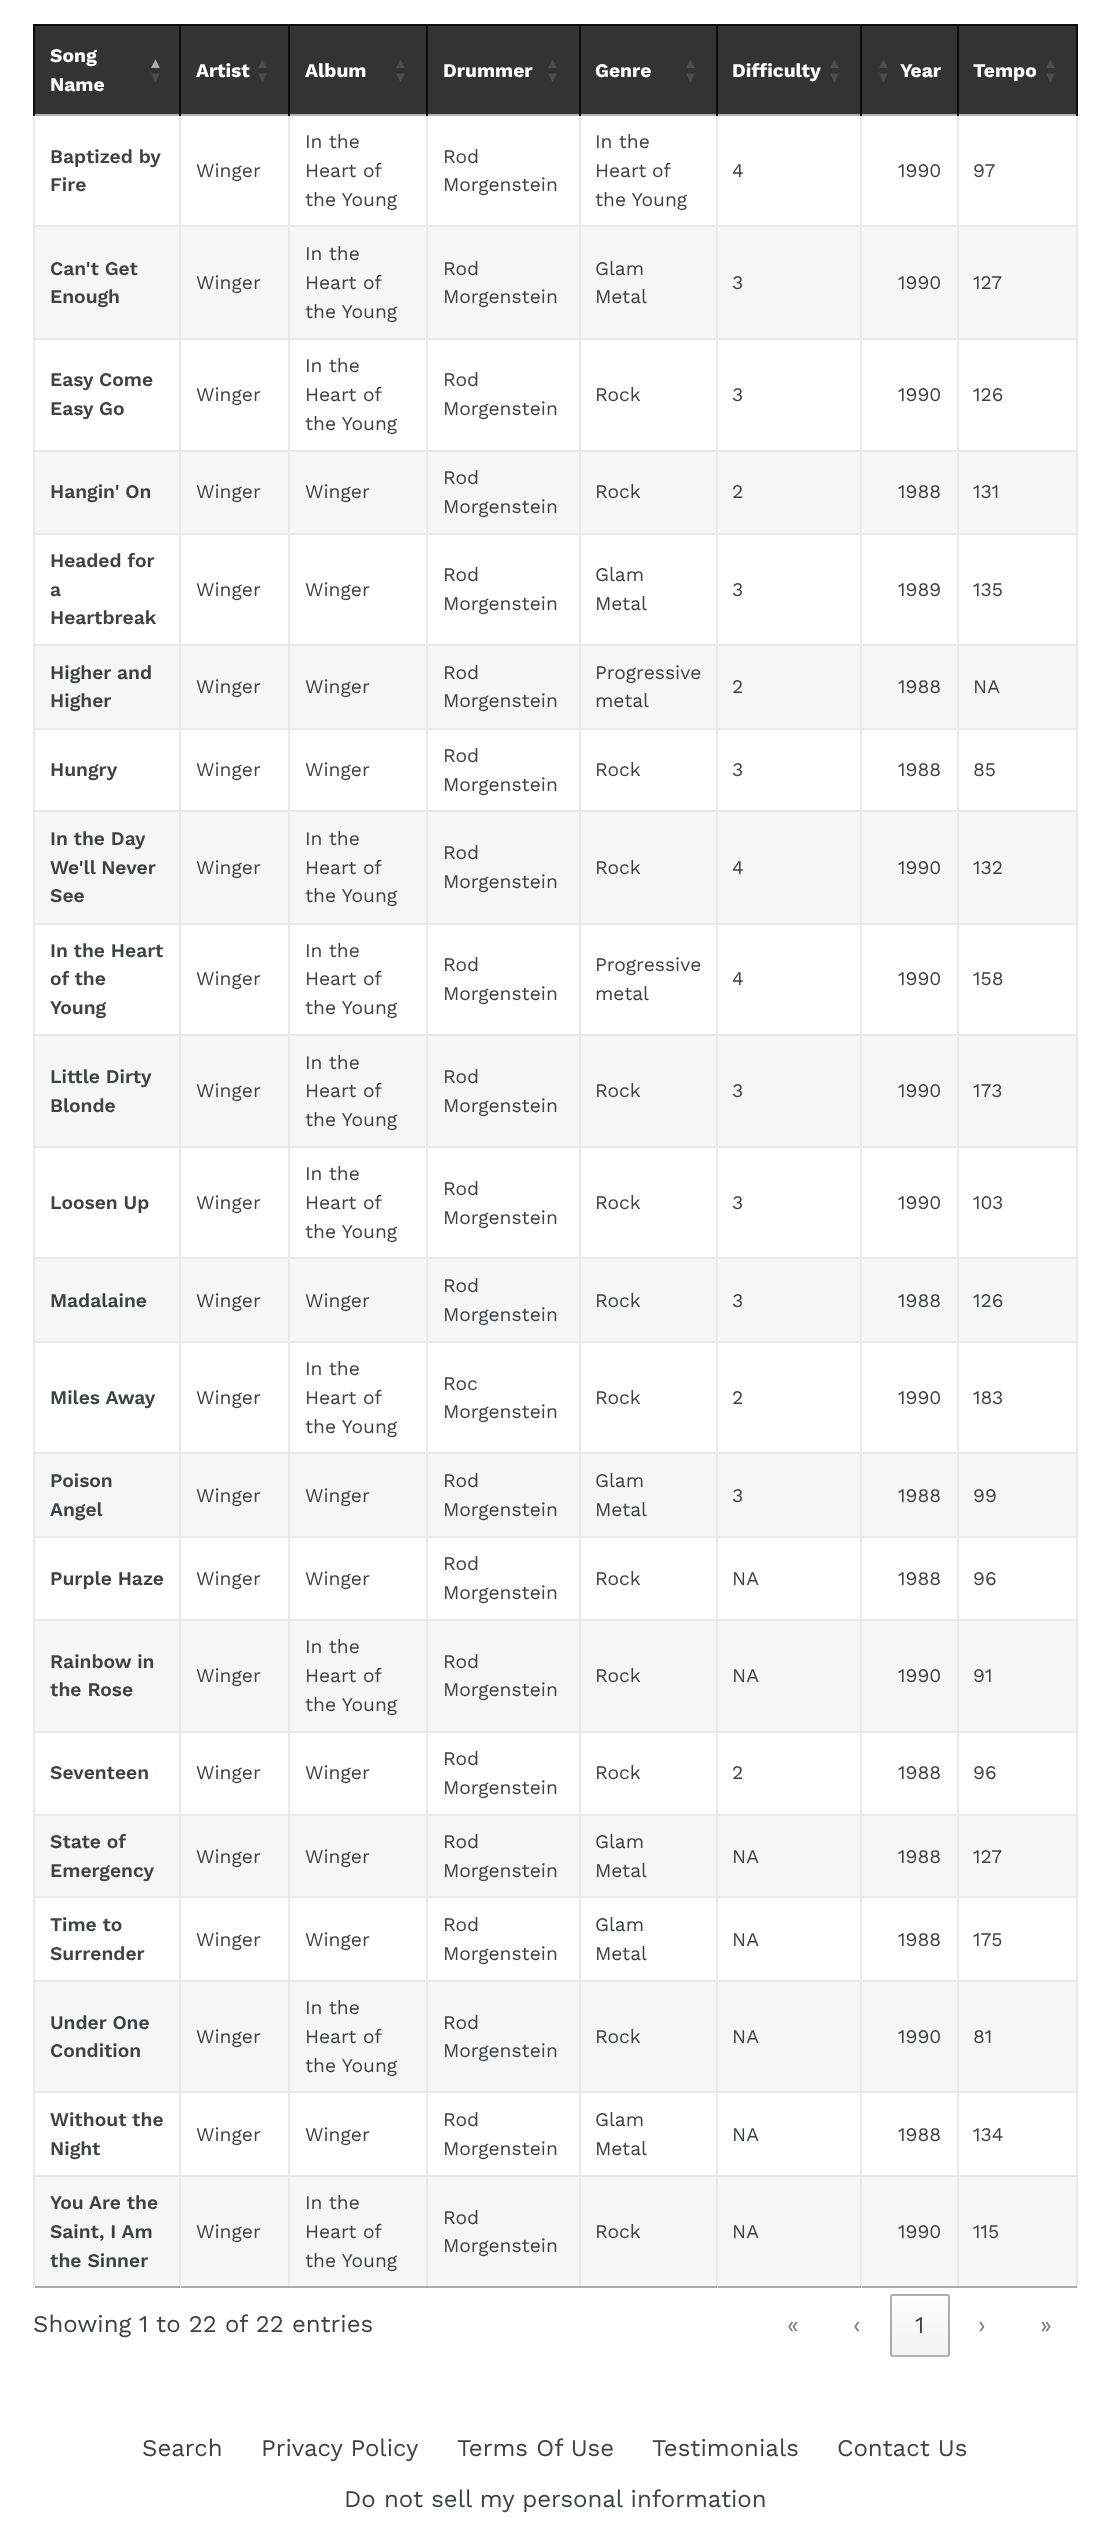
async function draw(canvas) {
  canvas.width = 1110
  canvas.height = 2541
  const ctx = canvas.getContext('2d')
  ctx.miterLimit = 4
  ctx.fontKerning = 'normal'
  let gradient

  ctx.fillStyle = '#fff'
  ctx.fillRect(0, 0, 1110, 2541)
  ctx.fillStyle = '#b3b3b3'
  ctx.fillRect(33, 114, 1044, 2)
  ctx.fillStyle = '#333'
  ctx.fillRect(35, 26, 1041, 88)
  ctx.fillStyle = '#0d0d0d'
  ctx.fillRect(957, 24, 120, 2)
  ctx.fillStyle = '#e8e9eb'
  ctx.fillRect(957, 225, 120, 2)
  ctx.fillStyle = '#f6f6f7'
  ctx.fillRect(35, 227, 1041, 111)
  ctx.fillStyle = '#e8e9eb'
  ctx.fillRect(957, 338, 120, 2)
  ctx.fillRect(957, 450, 120, 2)
  ctx.fillStyle = '#f6f6f7'
  ctx.fillRect(35, 452, 1041, 81)
  ctx.fillStyle = '#e8e9eb'
  ctx.fillRect(957, 533, 120, 2)
  ctx.fillRect(957, 644, 120, 2)
  ctx.fillStyle = '#f6f6f7'
  ctx.fillRect(35, 646, 1041, 82)
  ctx.fillStyle = '#e8e9eb'
  ctx.fillRect(957, 728, 120, 2)
  ctx.fillRect(957, 810, 120, 2)
  ctx.fillStyle = '#f6f6f7'
  ctx.fillRect(35, 812, 1041, 111)
  ctx.fillStyle = '#e8e9eb'
  ctx.fillRect(957, 923, 120, 2)
  ctx.fillRect(957, 1034, 120, 2)
  ctx.fillStyle = '#f6f6f7'
  ctx.fillRect(35, 1036, 1041, 110)
  ctx.fillStyle = '#e8e9eb'
  ctx.fillRect(957, 1146, 120, 2)
  ctx.fillRect(957, 1257, 120, 2)
  ctx.fillStyle = '#f6f6f7'
  ctx.fillRect(35, 1259, 1041, 82)
  ctx.fillStyle = '#e8e9eb'
  ctx.fillRect(957, 1341, 120, 2)
  ctx.fillRect(957, 1452, 120, 2)
  ctx.fillStyle = '#f6f6f7'
  ctx.fillRect(35, 1454, 1041, 82)
  ctx.fillStyle = '#e8e9eb'
  ctx.fillRect(957, 1536, 120, 2)
  ctx.fillRect(957, 1619, 120, 2)
  ctx.fillStyle = '#f6f6f7'
  ctx.fillRect(35, 1621, 1041, 110)
  ctx.fillStyle = '#e8e9eb'
  ctx.fillRect(957, 1731, 120, 2)
  ctx.fillRect(957, 1814, 120, 2)
  ctx.fillStyle = '#f6f6f7'
  ctx.fillRect(35, 1816, 1041, 80)
  ctx.fillStyle = '#e8e9eb'
  ctx.fillRect(957, 1896, 120, 2)
  ctx.fillRect(957, 1980, 120, 2)
  ctx.fillStyle = '#f6f6f7'
  ctx.fillRect(35, 1982, 1041, 109)
  ctx.fillStyle = '#e8e9eb'
  ctx.fillRect(957, 2091, 120, 2)
  ctx.fillRect(957, 2175, 120, 2)
  ctx.fillStyle = '#f6f6f7'
  ctx.fillRect(35, 2177, 1041, 109)
  ctx.fillStyle = '#acacad'
  ctx.fillRect(35, 2286, 1042, 2)
  ctx.fillStyle = '#e8e9eb'
  ctx.fillRect(957, 2175, 2, 113)
  ctx.fillRect(860, 2175, 99, 2)
  ctx.fillRect(957, 2091, 2, 86)
  ctx.fillRect(860, 2091, 99, 2)
  ctx.fillRect(957, 1980, 2, 113)
  ctx.fillRect(860, 1980, 99, 2)
  ctx.fillRect(957, 1896, 2, 86)
  ctx.fillRect(860, 1896, 99, 2)
  ctx.fillRect(957, 1814, 2, 84)
  ctx.fillRect(860, 1814, 99, 2)
  ctx.fillRect(957, 1731, 2, 84)
  ctx.fillRect(860, 1731, 99, 2)
  ctx.fillRect(957, 1619, 2, 114)
  ctx.fillRect(860, 1619, 99, 2)
  ctx.fillRect(957, 1536, 2, 84)
  ctx.fillRect(860, 1536, 99, 2)
  ctx.fillRect(957, 1452, 2, 86)
  ctx.fillRect(860, 1452, 99, 2)
  ctx.fillRect(957, 1341, 2, 113)
  ctx.fillRect(860, 1341, 99, 2)
  ctx.fillRect(957, 1257, 2, 86)
  ctx.fillRect(860, 1257, 99, 2)
  ctx.fillRect(957, 1146, 2, 113)
  ctx.fillRect(860, 1146, 99, 2)
  ctx.fillRect(957, 1034, 2, 114)
  ctx.fillRect(860, 1034, 99, 2)
  ctx.fillRect(957, 923, 2, 112)
  ctx.fillRect(860, 923, 99, 2)
  ctx.fillRect(957, 810, 2, 114)
  ctx.fillRect(860, 810, 99, 2)
  ctx.fillRect(957, 728, 2, 84)
  ctx.fillRect(860, 728, 99, 2)
  ctx.fillRect(957, 644, 2, 85)
  ctx.fillRect(860, 644, 99, 2)
  ctx.fillRect(957, 533, 2, 112)
  ctx.fillRect(860, 533, 99, 2)
  ctx.fillRect(957, 450, 2, 84)
  ctx.fillRect(860, 450, 99, 2)
  ctx.fillRect(957, 338, 2, 114)
  ctx.fillRect(860, 338, 99, 2)
  ctx.fillRect(957, 225, 2, 114)
  ctx.fillRect(860, 225, 99, 2)
  ctx.fillRect(957, 114, 2, 113)
  ctx.fillStyle = '#0d0d0d'
  ctx.fillRect(957, 24, 2, 92)
  ctx.fillRect(860, 24, 99, 2)
  ctx.fillStyle = '#e8e9eb'
  ctx.fillRect(860, 2175, 2, 113)
  ctx.fillRect(716, 2175, 145, 2)
  ctx.fillRect(860, 2091, 2, 86)
  ctx.fillRect(716, 2091, 145, 2)
  ctx.fillRect(860, 1980, 2, 113)
  ctx.fillRect(716, 1980, 145, 2)
  ctx.fillRect(860, 1896, 2, 86)
  ctx.fillRect(716, 1896, 145, 2)
  ctx.fillRect(860, 1814, 2, 84)
  ctx.fillRect(716, 1814, 145, 2)
  ctx.fillRect(860, 1731, 2, 84)
  ctx.fillRect(716, 1731, 145, 2)
  ctx.fillRect(860, 1619, 2, 114)
  ctx.fillRect(716, 1619, 145, 2)
  ctx.fillRect(860, 1536, 2, 84)
  ctx.fillRect(716, 1536, 145, 2)
  ctx.fillRect(860, 1452, 2, 86)
  ctx.fillRect(716, 1452, 145, 2)
  ctx.fillRect(860, 1341, 2, 113)
  ctx.fillRect(716, 1341, 145, 2)
  ctx.fillRect(860, 1257, 2, 86)
  ctx.fillRect(716, 1257, 145, 2)
  ctx.fillRect(860, 1146, 2, 113)
  ctx.fillRect(716, 1146, 145, 2)
  ctx.fillRect(860, 1034, 2, 114)
  ctx.fillRect(716, 1034, 145, 2)
  ctx.fillRect(860, 923, 2, 112)
  ctx.fillRect(716, 923, 145, 2)
  ctx.fillRect(860, 810, 2, 114)
  ctx.fillRect(716, 810, 145, 2)
  ctx.fillRect(860, 728, 2, 84)
  ctx.fillRect(716, 728, 145, 2)
  ctx.fillRect(860, 644, 2, 85)
  ctx.fillRect(716, 644, 145, 2)
  ctx.fillRect(860, 533, 2, 112)
  ctx.fillRect(716, 533, 145, 2)
  ctx.fillRect(860, 450, 2, 84)
  ctx.fillRect(716, 450, 145, 2)
  ctx.fillRect(860, 338, 2, 114)
  ctx.fillRect(716, 338, 145, 2)
  ctx.fillRect(860, 225, 2, 114)
  ctx.fillRect(716, 225, 145, 2)
  ctx.fillRect(860, 114, 2, 113)
  ctx.fillStyle = '#0d0d0d'
  ctx.fillRect(860, 24, 2, 92)
  ctx.fillRect(716, 24, 145, 2)
  ctx.fillStyle = '#e8e9eb'
  ctx.fillRect(716, 2175, 2, 113)
  ctx.fillRect(579, 2175, 138, 2)
  ctx.fillRect(716, 2091, 2, 86)
  ctx.fillRect(579, 2091, 138, 2)
  ctx.fillRect(716, 1980, 2, 113)
  ctx.fillRect(579, 1980, 138, 2)
  ctx.fillRect(716, 1896, 2, 86)
  ctx.fillRect(579, 1896, 138, 2)
  ctx.fillRect(716, 1814, 2, 84)
  ctx.fillRect(579, 1814, 138, 2)
  ctx.fillRect(716, 1731, 2, 84)
  ctx.fillRect(579, 1731, 138, 2)
  ctx.fillRect(716, 1619, 2, 114)
  ctx.fillRect(579, 1619, 138, 2)
  ctx.fillRect(716, 1536, 2, 84)
  ctx.fillRect(579, 1536, 138, 2)
  ctx.fillRect(716, 1452, 2, 86)
  ctx.fillRect(579, 1452, 138, 2)
  ctx.fillRect(716, 1341, 2, 113)
  ctx.fillRect(579, 1341, 138, 2)
  ctx.fillRect(716, 1257, 2, 86)
  ctx.fillRect(579, 1257, 138, 2)
  ctx.fillRect(716, 1146, 2, 113)
  ctx.fillRect(579, 1146, 138, 2)
  ctx.fillRect(716, 1034, 2, 114)
  ctx.fillRect(579, 1034, 138, 2)
  ctx.fillRect(716, 923, 2, 112)
  ctx.fillRect(579, 923, 138, 2)
  ctx.fillRect(716, 810, 2, 114)
  ctx.fillRect(579, 810, 138, 2)
  ctx.fillRect(716, 728, 2, 84)
  ctx.fillRect(579, 728, 138, 2)
  ctx.fillRect(716, 644, 2, 85)
  ctx.fillRect(579, 644, 138, 2)
  ctx.fillRect(716, 533, 2, 112)
  ctx.fillRect(579, 533, 138, 2)
  ctx.fillRect(716, 450, 2, 84)
  ctx.fillRect(579, 450, 138, 2)
  ctx.fillRect(716, 338, 2, 114)
  ctx.fillRect(579, 338, 138, 2)
  ctx.fillRect(716, 225, 2, 114)
  ctx.fillRect(579, 225, 138, 2)
  ctx.fillRect(716, 114, 2, 113)
  ctx.fillStyle = '#0d0d0d'
  ctx.fillRect(716, 24, 2, 92)
  ctx.fillRect(579, 24, 138, 2)
  ctx.fillStyle = '#e8e9eb'
  ctx.fillRect(579, 2175, 2, 113)
  ctx.fillRect(426, 2175, 155, 2)
  ctx.fillRect(579, 2091, 2, 86)
  ctx.fillRect(426, 2091, 155, 2)
  ctx.fillRect(579, 1980, 2, 113)
  ctx.fillRect(426, 1980, 155, 2)
  ctx.fillRect(579, 1896, 2, 86)
  ctx.fillRect(426, 1896, 155, 2)
  ctx.fillRect(579, 1814, 2, 84)
  ctx.fillRect(426, 1814, 155, 2)
  ctx.fillRect(579, 1731, 2, 84)
  ctx.fillRect(426, 1731, 155, 2)
  ctx.fillRect(579, 1619, 2, 114)
  ctx.fillRect(426, 1619, 155, 2)
  ctx.fillRect(579, 1536, 2, 84)
  ctx.fillRect(426, 1536, 155, 2)
  ctx.fillRect(579, 1452, 2, 86)
  ctx.fillRect(426, 1452, 155, 2)
  ctx.fillRect(579, 1341, 2, 113)
  ctx.fillRect(426, 1341, 155, 2)
  ctx.fillRect(579, 1257, 2, 86)
  ctx.fillRect(426, 1257, 155, 2)
  ctx.fillRect(579, 1146, 2, 113)
  ctx.fillRect(426, 1146, 155, 2)
  ctx.fillRect(579, 1034, 2, 114)
  ctx.fillRect(426, 1034, 155, 2)
  ctx.fillRect(579, 923, 2, 112)
  ctx.fillRect(426, 923, 155, 2)
  ctx.fillRect(579, 810, 2, 114)
  ctx.fillRect(426, 810, 155, 2)
  ctx.fillRect(579, 728, 2, 84)
  ctx.fillRect(426, 728, 155, 2)
  ctx.fillRect(579, 644, 2, 85)
  ctx.fillRect(426, 644, 155, 2)
  ctx.fillRect(579, 533, 2, 112)
  ctx.fillRect(426, 533, 155, 2)
  ctx.fillRect(579, 450, 2, 84)
  ctx.fillRect(426, 450, 155, 2)
  ctx.fillRect(579, 338, 2, 114)
  ctx.fillRect(426, 338, 155, 2)
  ctx.fillRect(579, 225, 2, 114)
  ctx.fillRect(426, 225, 155, 2)
  ctx.fillRect(579, 114, 2, 113)
  ctx.fillStyle = '#0d0d0d'
  ctx.fillRect(579, 24, 2, 92)
  ctx.fillRect(426, 24, 155, 2)
  ctx.fillStyle = '#e8e9eb'
  ctx.fillRect(426, 2175, 2, 113)
  ctx.fillRect(288, 2175, 140, 2)
  ctx.fillRect(426, 2091, 2, 86)
  ctx.fillRect(288, 2091, 140, 2)
  ctx.fillRect(426, 1980, 2, 113)
  ctx.fillRect(288, 1980, 140, 2)
  ctx.fillRect(426, 1896, 2, 86)
  ctx.fillRect(288, 1896, 140, 2)
  ctx.fillRect(426, 1814, 2, 84)
  ctx.fillRect(288, 1814, 140, 2)
  ctx.fillRect(426, 1731, 2, 84)
  ctx.fillRect(288, 1731, 140, 2)
  ctx.fillRect(426, 1619, 2, 114)
  ctx.fillRect(288, 1619, 140, 2)
  ctx.fillRect(426, 1536, 2, 84)
  ctx.fillRect(288, 1536, 140, 2)
  ctx.fillRect(426, 1452, 2, 86)
  ctx.fillRect(288, 1452, 140, 2)
  ctx.fillRect(426, 1341, 2, 113)
  ctx.fillRect(288, 1341, 140, 2)
  ctx.fillRect(426, 1257, 2, 86)
  ctx.fillRect(288, 1257, 140, 2)
  ctx.fillRect(426, 1146, 2, 113)
  ctx.fillRect(288, 1146, 140, 2)
  ctx.fillRect(426, 1034, 2, 114)
  ctx.fillRect(288, 1034, 140, 2)
  ctx.fillRect(426, 923, 2, 112)
  ctx.fillRect(288, 923, 140, 2)
  ctx.fillRect(426, 810, 2, 114)
  ctx.fillRect(288, 810, 140, 2)
  ctx.fillRect(426, 728, 2, 84)
  ctx.fillRect(288, 728, 140, 2)
  ctx.fillRect(426, 644, 2, 85)
  ctx.fillRect(288, 644, 140, 2)
  ctx.fillRect(426, 533, 2, 112)
  ctx.fillRect(288, 533, 140, 2)
  ctx.fillRect(426, 450, 2, 84)
  ctx.fillRect(288, 450, 140, 2)
  ctx.fillRect(426, 338, 2, 114)
  ctx.fillRect(288, 338, 140, 2)
  ctx.fillRect(426, 225, 2, 114)
  ctx.fillRect(288, 225, 140, 2)
  ctx.fillRect(426, 114, 2, 113)
  ctx.fillStyle = '#0d0d0d'
  ctx.fillRect(426, 24, 2, 92)
  ctx.fillRect(288, 24, 140, 2)
  ctx.fillStyle = '#e8e9eb'
  ctx.fillRect(288, 2175, 2, 113)
  ctx.fillRect(179, 2175, 111, 2)
  ctx.fillRect(288, 2091, 2, 86)
  ctx.fillRect(179, 2091, 111, 2)
  ctx.fillRect(288, 1980, 2, 113)
  ctx.fillRect(179, 1980, 111, 2)
  ctx.fillRect(288, 1896, 2, 86)
  ctx.fillRect(179, 1896, 111, 2)
  ctx.fillRect(288, 1814, 2, 84)
  ctx.fillRect(179, 1814, 111, 2)
  ctx.fillRect(288, 1731, 2, 84)
  ctx.fillRect(179, 1731, 111, 2)
  ctx.fillRect(288, 1619, 2, 114)
  ctx.fillRect(179, 1619, 111, 2)
  ctx.fillRect(288, 1536, 2, 84)
  ctx.fillRect(179, 1536, 111, 2)
  ctx.fillRect(288, 1452, 2, 86)
  ctx.fillRect(179, 1452, 111, 2)
  ctx.fillRect(288, 1341, 2, 113)
  ctx.fillRect(179, 1341, 111, 2)
  ctx.fillRect(288, 1257, 2, 86)
  ctx.fillRect(179, 1257, 111, 2)
  ctx.fillRect(288, 1146, 2, 113)
  ctx.fillRect(179, 1146, 111, 2)
  ctx.fillRect(288, 1034, 2, 114)
  ctx.fillRect(179, 1034, 111, 2)
  ctx.fillRect(288, 923, 2, 112)
  ctx.fillRect(179, 923, 111, 2)
  ctx.fillRect(288, 810, 2, 114)
  ctx.fillRect(179, 810, 111, 2)
  ctx.fillRect(288, 728, 2, 84)
  ctx.fillRect(179, 728, 111, 2)
  ctx.fillRect(288, 644, 2, 85)
  ctx.fillRect(179, 644, 111, 2)
  ctx.fillRect(288, 533, 2, 112)
  ctx.fillRect(179, 533, 111, 2)
  ctx.fillRect(288, 450, 2, 84)
  ctx.fillRect(179, 450, 111, 2)
  ctx.fillRect(288, 338, 2, 114)
  ctx.fillRect(179, 338, 111, 2)
  ctx.fillRect(288, 225, 2, 114)
  ctx.fillRect(179, 225, 111, 2)
  ctx.fillRect(288, 114, 2, 113)
  ctx.fillStyle = '#0d0d0d'
  ctx.fillRect(288, 24, 2, 92)
  ctx.fillRect(179, 24, 111, 2)
  ctx.fillStyle = '#e8e9eb'
  ctx.fillRect(179, 2175, 2, 113)
  ctx.fillRect(33, 2175, 147, 2)
  ctx.fillRect(179, 2091, 2, 86)
  ctx.fillRect(33, 2091, 147, 2)
  ctx.fillRect(179, 1980, 2, 113)
  ctx.fillRect(33, 1980, 147, 2)
  ctx.fillRect(179, 1896, 2, 86)
  ctx.fillRect(33, 1896, 147, 2)
  ctx.fillRect(179, 1814, 2, 84)
  ctx.fillRect(33, 1814, 147, 2)
  ctx.fillRect(179, 1731, 2, 84)
  ctx.fillRect(33, 1731, 147, 2)
  ctx.fillRect(179, 1619, 2, 114)
  ctx.fillRect(33, 1619, 147, 2)
  ctx.fillRect(179, 1536, 2, 84)
  ctx.fillRect(33, 1536, 147, 2)
  ctx.fillRect(179, 1452, 2, 86)
  ctx.fillRect(33, 1452, 147, 2)
  ctx.fillRect(179, 1341, 2, 113)
  ctx.fillRect(33, 1341, 147, 2)
  ctx.fillRect(179, 1257, 2, 86)
  ctx.fillRect(33, 1257, 147, 2)
  ctx.fillRect(179, 1146, 2, 113)
  ctx.fillRect(33, 1146, 147, 2)
  ctx.fillRect(179, 1034, 2, 114)
  ctx.fillRect(33, 1034, 147, 2)
  ctx.fillRect(179, 923, 2, 112)
  ctx.fillRect(33, 923, 147, 2)
  ctx.fillRect(179, 810, 2, 114)
  ctx.fillRect(33, 810, 147, 2)
  ctx.fillRect(179, 728, 2, 84)
  ctx.fillRect(33, 728, 147, 2)
  ctx.fillRect(179, 644, 2, 85)
  ctx.fillRect(33, 644, 147, 2)
  ctx.fillRect(179, 533, 2, 112)
  ctx.fillRect(33, 533, 147, 2)
  ctx.fillRect(179, 450, 2, 84)
  ctx.fillRect(33, 450, 147, 2)
  ctx.fillRect(179, 338, 2, 114)
  ctx.fillRect(33, 338, 147, 2)
  ctx.fillRect(179, 225, 2, 114)
  ctx.fillRect(33, 225, 147, 2)
  ctx.fillRect(179, 114, 2, 113)
  ctx.fillStyle = '#0d0d0d'
  ctx.fillRect(179, 24, 2, 92)
  ctx.fillRect(33, 24, 147, 2)
  ctx.fillStyle = '#e8e9eb'
  ctx.fillRect(33, 2175, 2, 113)
  ctx.fillRect(33, 2091, 2, 86)
  ctx.fillRect(33, 1980, 2, 113)
  ctx.fillRect(33, 1896, 2, 86)
  ctx.fillRect(33, 1814, 2, 84)
  ctx.fillRect(33, 1731, 2, 84)
  ctx.fillRect(33, 1619, 2, 114)
  ctx.fillRect(33, 1536, 2, 84)
  ctx.fillRect(33, 1452, 2, 86)
  ctx.fillRect(33, 1341, 2, 113)
  ctx.fillRect(33, 1257, 2, 86)
  ctx.fillRect(33, 1146, 2, 113)
  ctx.fillRect(33, 1034, 2, 114)
  ctx.fillRect(33, 923, 2, 112)
  ctx.fillRect(33, 810, 2, 114)
  ctx.fillRect(33, 728, 2, 84)
  ctx.fillRect(33, 644, 2, 85)
  ctx.fillRect(33, 533, 2, 112)
  ctx.fillRect(33, 450, 2, 84)
  ctx.fillRect(33, 338, 2, 114)
  ctx.fillRect(33, 114, 2, 225)
  ctx.fillStyle = '#0d0d0d'
  ctx.fillRect(33, 24, 2, 92)
  ctx.font = 'bold 19.25px Work Sans'
  ctx.fillStyle = '#fff'
  ctx.fillText('Song', 50, 62)
  ctx.fillText('Name', 50, 91)
  ctx.font = 'bold 15px Liberation Sans'
  ctx.fillStyle = '#adadad'
  ctx.fillText('▲', 148, 68)
  ctx.fillStyle = '#4d4d4d'
  ctx.fillText('▼', 148, 82)
  ctx.fillStyle = '#090909'
  ctx.fillRect(179, 114, 1, 2)
  ctx.font = 'bold 19.25px Work Sans'
  ctx.fillStyle = '#fff'
  ctx.fillText('Artist', 196, 77)
  ctx.font = 'bold 15px Liberation Sans'
  ctx.fillStyle = '#4d4d4d'
  ctx.fillText('▲', 255, 68)
  ctx.fillText('▼', 255, 82)
  ctx.fillStyle = '#090909'
  ctx.fillRect(288, 114, 2, 2)
  ctx.font = 'bold 19.25px Work Sans'
  ctx.fillStyle = '#fff'
  ctx.fillText('Album', 305, 77)
  ctx.font = 'bold 15px Liberation Sans'
  ctx.fillStyle = '#4d4d4d'
  ctx.fillText('▲', 393, 68)
  ctx.fillText('▼', 393, 82)
  ctx.fillStyle = '#090909'
  ctx.fillRect(426, 114, 2, 2)
  ctx.font = 'bold 19.25px Work Sans'
  ctx.fillStyle = '#fff'
  ctx.fillText('Drummer', 443, 77)
  ctx.font = 'bold 15px Liberation Sans'
  ctx.fillStyle = '#4d4d4d'
  ctx.fillText('▲', 545, 68)
  ctx.fillText('▼', 545, 82)
  ctx.fillStyle = '#090909'
  ctx.fillRect(579, 114, 2, 2)
  ctx.font = 'bold 19.25px Work Sans'
  ctx.fillStyle = '#fff'
  ctx.fillText('Genre', 595, 77)
  ctx.font = 'bold 15px Liberation Sans'
  ctx.fillStyle = '#4d4d4d'
  ctx.fillText('▲', 683, 68)
  ctx.fillText('▼', 683, 82)
  ctx.fillStyle = '#090909'
  ctx.fillRect(716, 114, 1, 2)
  ctx.font = 'bold 19.25px Work Sans'
  ctx.fillStyle = '#fff'
  ctx.fillText('Difficulty', 732, 77)
  ctx.font = 'bold 15px Liberation Sans'
  ctx.fillStyle = '#4d4d4d'
  ctx.fillText('▲', 827, 68)
  ctx.fillText('▼', 827, 82)
  ctx.fillStyle = '#090909'
  ctx.fillRect(860, 114, 1, 2)
  ctx.fillStyle = '#4d4d4d'
  ctx.fillText('▲', 876, 68)
  ctx.fillText('▼', 876, 82)
  ctx.font = 'bold 19.25px Work Sans'
  ctx.fillStyle = '#fff'
  ctx.fillText('Year', 900, 77)
  ctx.fillStyle = '#e8e9eb'
  ctx.fillRect(1076, 2175, 2, 113)
  ctx.fillRect(1076, 2091, 2, 86)
  ctx.fillRect(1076, 1980, 2, 113)
  ctx.fillRect(1076, 1896, 2, 86)
  ctx.fillRect(1076, 1814, 2, 84)
  ctx.fillRect(1076, 1731, 2, 84)
  ctx.fillRect(1076, 1619, 2, 114)
  ctx.fillRect(1076, 1536, 2, 84)
  ctx.fillRect(1076, 1452, 2, 86)
  ctx.fillRect(1076, 1341, 2, 113)
  ctx.fillRect(1076, 1257, 2, 86)
  ctx.fillRect(1076, 1146, 2, 113)
  ctx.fillRect(1076, 1034, 2, 114)
  ctx.fillRect(1076, 923, 2, 112)
  ctx.fillRect(1076, 810, 2, 114)
  ctx.fillRect(1076, 728, 2, 84)
  ctx.fillRect(1076, 644, 2, 85)
  ctx.fillRect(1076, 533, 2, 112)
  ctx.fillRect(1076, 450, 2, 84)
  ctx.fillRect(1076, 338, 2, 114)
  ctx.fillRect(1076, 114, 2, 225)
  ctx.fillStyle = '#0d0d0d'
  ctx.fillRect(1076, 24, 2, 92)
  ctx.fillStyle = '#090909'
  ctx.fillRect(1076, 114, 1, 2)
  ctx.fillRect(957, 114, 2, 2)
  ctx.fillStyle = '#fff'
  ctx.fillText('Tempo', 973, 77)
  ctx.font = 'bold 15px Liberation Sans'
  ctx.fillStyle = '#4d4d4d'
  ctx.fillText('▲', 1043, 68)
  ctx.fillText('▼', 1043, 82)
  ctx.font = '600 19.25px Work Sans'
  ctx.fillStyle = '#3d4246'
  ctx.fillText('Baptized by', 50, 163)
  ctx.fillText('Fire', 50, 191)
  ctx.font = '19.25px Work Sans'
  ctx.fillText('Winger', 196, 177)
  ctx.fillText('In the', 305, 148)
  ctx.fillText('Heart of', 305, 177)
  ctx.fillText('the Young', 305, 206)
  ctx.fillText('Rod', 443, 163)
  ctx.fillText('Morgenstein', 443, 191)
  ctx.fillText('In the', 595, 148)
  ctx.wordSpacing = '-1px'
  ctx.fillText('Heart of', 595, 177)
  ctx.wordSpacing = '0px'
  ctx.fillText('the Young', 595, 206)
  ctx.fillText('4', 732, 177)
  ctx.fillText('1990', 898, 177)
  ctx.fillText('97', 973, 177)
  ctx.font = '600 19.25px Work Sans'
  ctx.fillText('Can\'t Get', 50, 275)
  ctx.fillText('Enough', 50, 303)
  ctx.font = '19.25px Work Sans'
  ctx.fillText('Winger', 196, 289)
  ctx.fillText('In the', 305, 260)
  ctx.fillText('Heart of', 305, 289)
  ctx.fillText('the Young', 305, 318)
  ctx.fillText('Rod', 443, 275)
  ctx.fillText('Morgenstein', 443, 303)
  ctx.fillText('Glam', 595, 275)
  ctx.fillText('Metal', 595, 303)
  ctx.fillText('3', 732, 289)
  ctx.fillText('1990', 898, 289)
  ctx.fillText('127', 973, 289)
  ctx.font = '600 19.25px Work Sans'
  ctx.fillText('Easy Come', 50, 386)
  ctx.fillText('Easy Go', 50, 415)
  ctx.font = '19.25px Work Sans'
  ctx.fillText('Winger', 196, 401)
  ctx.fillText('In the', 305, 372)
  ctx.fillText('Heart of', 305, 401)
  ctx.fillText('the Young', 305, 430)
  ctx.fillText('Rod', 443, 386)
  ctx.fillText('Morgenstein', 443, 415)
  ctx.fillText('Rock', 595, 401)
  ctx.fillText('3', 732, 401)
  ctx.fillText('1990', 898, 401)
  ctx.fillText('126', 973, 401)
  ctx.font = '600 19.25px Work Sans'
  ctx.fillText('Hangin\' On', 50, 498)
  ctx.font = '19.25px Work Sans'
  ctx.fillText('Winger', 196, 498)
  ctx.fillText('Winger', 305, 498)
  ctx.fillText('Rod', 443, 484)
  ctx.fillText('Morgenstein', 443, 513)
  ctx.fillText('Rock', 595, 498)
  ctx.fillText('2', 732, 498)
  ctx.fillText('1988', 898, 498)
  ctx.fillText('131', 973, 498)
  ctx.font = '600 19.25px Work Sans'
  ctx.fillText('Headed for', 50, 567)
  ctx.fillText('a', 50, 596)
  ctx.fillText('Heartbreak', 50, 624)
  ctx.font = '19.25px Work Sans'
  ctx.fillText('Winger', 196, 596)
  ctx.fillText('Winger', 305, 596)
  ctx.fillText('Rod', 443, 581)
  ctx.fillText('Morgenstein', 443, 610)
  ctx.fillText('Glam', 595, 581)
  ctx.fillText('Metal', 595, 610)
  ctx.fillText('3', 732, 596)
  ctx.fillText('1989', 898, 596)
  ctx.fillText('135', 973, 596)
  ctx.font = '600 19.25px Work Sans'
  ctx.fillText('Higher and', 50, 679)
  ctx.fillText('Higher', 50, 707)
  ctx.font = '19.25px Work Sans'
  ctx.fillText('Winger', 196, 693)
  ctx.fillText('Winger', 305, 693)
  ctx.fillText('Rod', 443, 679)
  ctx.fillText('Morgenstein', 443, 707)
  ctx.fillText('Progressive', 595, 679)
  ctx.fillText('metal', 595, 707)
  ctx.fillText('2', 732, 693)
  ctx.fillText('1988', 898, 693)
  ctx.fillText('NA', 973, 693)
  ctx.font = '600 19.25px Work Sans'
  ctx.fillText('Hungry', 50, 776)
  ctx.font = '19.25px Work Sans'
  ctx.fillText('Winger', 196, 776)
  ctx.fillText('Winger', 305, 776)
  ctx.fillText('Rod', 443, 762)
  ctx.fillText('Morgenstein', 443, 791)
  ctx.fillText('Rock', 595, 776)
  ctx.fillText('3', 732, 776)
  ctx.fillText('1988', 898, 776)
  ctx.fillText('85', 973, 776)
  ctx.font = '600 19.25px Work Sans'
  ctx.fillText('In the Day', 50, 845)
  ctx.fillText('We\'ll Never', 50, 874)
  ctx.fillText('See', 50, 902)
  ctx.font = '19.25px Work Sans'
  ctx.fillText('Winger', 196, 874)
  ctx.fillText('In the', 305, 845)
  ctx.fillText('Heart of', 305, 874)
  ctx.fillText('the Young', 305, 902)
  ctx.fillText('Rod', 443, 859)
  ctx.fillText('Morgenstein', 443, 888)
  ctx.fillText('Rock', 595, 874)
  ctx.fillText('4', 732, 874)
  ctx.fillText('1990', 898, 874)
  ctx.fillText('132', 973, 874)
  ctx.font = '600 19.25px Work Sans'
  ctx.fillText('In the Heart', 50, 957)
  ctx.fillText('of the', 50, 985)
  ctx.fillText('Young', 50, 1014)
  ctx.font = '19.25px Work Sans'
  ctx.fillText('Winger', 196, 985)
  ctx.fillText('In the', 305, 957)
  ctx.fillText('Heart of', 305, 985)
  ctx.fillText('the Young', 305, 1014)
  ctx.fillText('Rod', 443, 971)
  ctx.fillText('Morgenstein', 443, 1000)
  ctx.fillText('Progressive', 595, 971)
  ctx.fillText('metal', 595, 1000)
  ctx.fillText('4', 732, 985)
  ctx.fillText('1990', 898, 985)
  ctx.fillText('158', 973, 985)
  ctx.font = '600 19.25px Work Sans'
  ctx.fillText('Little Dirty', 50, 1083)
  ctx.fillText('Blonde', 50, 1112)
  ctx.font = '19.25px Work Sans'
  ctx.fillText('Winger', 196, 1097)
  ctx.fillText('In the', 305, 1069)
  ctx.fillText('Heart of', 305, 1097)
  ctx.fillText('the Young', 305, 1126)
  ctx.fillText('Rod', 443, 1083)
  ctx.fillText('Morgenstein', 443, 1112)
  ctx.fillText('Rock', 595, 1097)
  ctx.fillText('3', 732, 1097)
  ctx.fillText('1990', 898, 1097)
  ctx.fillText('173', 973, 1097)
  ctx.font = '600 19.25px Work Sans'
  ctx.fillText('Loosen Up', 50, 1209)
  ctx.font = '19.25px Work Sans'
  ctx.fillText('Winger', 196, 1209)
  ctx.fillText('In the', 305, 1180)
  ctx.fillText('Heart of', 305, 1209)
  ctx.fillText('the Young', 305, 1238)
  ctx.fillText('Rod', 443, 1195)
  ctx.fillText('Morgenstein', 443, 1224)
  ctx.fillText('Rock', 595, 1209)
  ctx.fillText('3', 732, 1209)
  ctx.fillText('1990', 898, 1209)
  ctx.fillText('103', 973, 1209)
  ctx.font = '600 19.25px Work Sans'
  ctx.fillText('Madalaine', 50, 1307)
  ctx.font = '19.25px Work Sans'
  ctx.fillText('Winger', 196, 1307)
  ctx.fillText('Winger', 305, 1307)
  ctx.fillText('Rod', 443, 1292)
  ctx.fillText('Morgenstein', 443, 1321)
  ctx.fillText('Rock', 595, 1307)
  ctx.fillText('3', 732, 1307)
  ctx.fillText('1988', 898, 1307)
  ctx.fillText('126', 973, 1307)
  ctx.font = '600 19.25px Work Sans'
  ctx.fillText('Miles Away', 50, 1404)
  ctx.font = '19.25px Work Sans'
  ctx.fillText('Winger', 196, 1404)
  ctx.fillText('In the', 305, 1375)
  ctx.fillText('Heart of', 305, 1404)
  ctx.fillText('the Young', 305, 1433)
  ctx.fillText('Roc', 443, 1390)
  ctx.fillText('Morgenstein', 443, 1418)
  ctx.fillText('Rock', 595, 1404)
  ctx.fillText('2', 732, 1404)
  ctx.fillText('1990', 898, 1404)
  ctx.fillText('183', 973, 1404)
  ctx.font = '600 19.25px Work Sans'
  ctx.fillText('Poison', 50, 1487)
  ctx.fillText('Angel', 50, 1516)
  ctx.font = '19.25px Work Sans'
  ctx.fillText('Winger', 196, 1502)
  ctx.fillText('Winger', 305, 1502)
  ctx.fillText('Rod', 443, 1487)
  ctx.fillText('Morgenstein', 443, 1516)
  ctx.fillText('Glam', 595, 1487)
  ctx.fillText('Metal', 595, 1516)
  ctx.fillText('3', 732, 1502)
  ctx.fillText('1988', 898, 1502)
  ctx.fillText('99', 973, 1502)
  ctx.font = '600 19.25px Work Sans'
  ctx.fillText('Purple Haze', 50, 1585)
  ctx.font = '19.25px Work Sans'
  ctx.fillText('Winger', 196, 1585)
  ctx.fillText('Winger', 305, 1585)
  ctx.fillText('Rod', 443, 1570)
  ctx.fillText('Morgenstein', 443, 1599)
  ctx.fillText('Rock', 595, 1585)
  ctx.fillText('NA', 732, 1585)
  ctx.fillText('1988', 898, 1585)
  ctx.fillText('96', 973, 1585)
  ctx.font = '600 19.25px Work Sans'
  ctx.fillText('Rainbow in', 50, 1668)
  ctx.fillText('the Rose', 50, 1696)
  ctx.font = '19.25px Work Sans'
  ctx.fillText('Winger', 196, 1682)
  ctx.fillText('In the', 305, 1653)
  ctx.fillText('Heart of', 305, 1682)
  ctx.fillText('the Young', 305, 1711)
  ctx.fillText('Rod', 443, 1668)
  ctx.fillText('Morgenstein', 443, 1696)
  ctx.fillText('Rock', 595, 1682)
  ctx.fillText('NA', 732, 1682)
  ctx.fillText('1990', 898, 1682)
  ctx.fillText('91', 973, 1682)
  ctx.font = '600 19.25px Work Sans'
  ctx.fillText('Seventeen', 50, 1779)
  ctx.font = '19.25px Work Sans'
  ctx.fillText('Winger', 196, 1779)
  ctx.fillText('Winger', 305, 1779)
  ctx.fillText('Rod', 443, 1765)
  ctx.fillText('Morgenstein', 443, 1794)
  ctx.fillText('Rock', 595, 1779)
  ctx.fillText('2', 732, 1779)
  ctx.fillText('1988', 898, 1779)
  ctx.fillText('96', 973, 1779)
  ctx.font = '600 19.25px Work Sans'
  ctx.fillText('State of', 50, 1848)
  ctx.fillText('Emergency', 50, 1877)
  ctx.font = '19.25px Work Sans'
  ctx.fillText('Winger', 196, 1863)
  ctx.fillText('Winger', 305, 1863)
  ctx.fillText('Rod', 443, 1848)
  ctx.fillText('Morgenstein', 443, 1877)
  ctx.fillText('Glam', 595, 1848)
  ctx.fillText('Metal', 595, 1877)
  ctx.fillText('NA', 732, 1863)
  ctx.fillText('1988', 898, 1863)
  ctx.fillText('127', 973, 1863)
  ctx.font = '600 19.25px Work Sans'
  ctx.fillText('Time to', 50, 1931)
  ctx.fillText('Surrender', 50, 1960)
  ctx.font = '19.25px Work Sans'
  ctx.fillText('Winger', 196, 1946)
  ctx.fillText('Winger', 305, 1946)
  ctx.fillText('Rod', 443, 1931)
  ctx.fillText('Morgenstein', 443, 1960)
  ctx.fillText('Glam', 595, 1931)
  ctx.fillText('Metal', 595, 1960)
  ctx.fillText('NA', 732, 1946)
  ctx.fillText('1988', 898, 1946)
  ctx.fillText('175', 973, 1946)
  ctx.font = '600 19.25px Work Sans'
  ctx.fillText('Under One', 50, 2029)
  ctx.fillText('Condition', 50, 2057)
  ctx.font = '19.25px Work Sans'
  ctx.fillText('Winger', 196, 2043)
  ctx.fillText('In the', 305, 2014)
  ctx.fillText('Heart of', 305, 2043)
  ctx.fillText('the Young', 305, 2072)
  ctx.fillText('Rod', 443, 2029)
  ctx.fillText('Morgenstein', 443, 2057)
  ctx.fillText('Rock', 595, 2043)
  ctx.fillText('NA', 732, 2043)
  ctx.fillText('1990', 898, 2043)
  ctx.fillText('81', 973, 2043)
  ctx.font = '600 19.25px Work Sans'
  ctx.fillText('Without the', 50, 2126)
  ctx.fillText('Night', 50, 2155)
  ctx.font = '19.25px Work Sans'
  ctx.fillText('Winger', 196, 2141)
  ctx.fillText('Winger', 305, 2141)
  ctx.fillText('Rod', 443, 2126)
  ctx.fillText('Morgenstein', 443, 2155)
  ctx.fillText('Glam', 595, 2126)
  ctx.fillText('Metal', 595, 2155)
  ctx.fillText('NA', 732, 2141)
  ctx.fillText('1988', 898, 2141)
  ctx.fillText('134', 973, 2141)
  ctx.font = '600 19.25px Work Sans'
  ctx.fillText('You Are the', 50, 2209)
  ctx.fillText('Saint, I Am', 50, 2238)
  ctx.fillText('the Sinner', 50, 2267)
  ctx.fillStyle = '#a2a3a5'
  ctx.fillRect(179, 2286, 1, 2)
  ctx.font = '19.25px Work Sans'
  ctx.fillStyle = '#3d4246'
  ctx.fillText('Winger', 196, 2238)
  ctx.fillStyle = '#a2a3a5'
  ctx.fillRect(288, 2286, 2, 2)
  ctx.fillStyle = '#3d4246'
  ctx.fillText('In the', 305, 2209)
  ctx.fillText('Heart of', 305, 2238)
  ctx.fillText('the Young', 305, 2267)
  ctx.fillStyle = '#a2a3a5'
  ctx.fillRect(426, 2286, 2, 2)
  ctx.fillStyle = '#3d4246'
  ctx.fillText('Rod', 443, 2224)
  ctx.fillText('Morgenstein', 443, 2252)
  ctx.fillStyle = '#a2a3a5'
  ctx.fillRect(579, 2286, 2, 2)
  ctx.fillStyle = '#3d4246'
  ctx.fillText('Rock', 595, 2238)
  ctx.fillStyle = '#a2a3a5'
  ctx.fillRect(716, 2286, 1, 2)
  ctx.fillStyle = '#3d4246'
  ctx.fillText('NA', 732, 2238)
  ctx.fillStyle = '#a2a3a5'
  ctx.fillRect(860, 2286, 1, 2)
  ctx.fillStyle = '#3d4246'
  ctx.fillText('1990', 898, 2238)
  ctx.fillStyle = '#a2a3a5'
  ctx.fillRect(1076, 2286, 1, 2)
  ctx.fillRect(957, 2286, 2, 2)
  ctx.fillStyle = '#3d4246'
  ctx.fillText('115', 973, 2238)
  ctx.font = '24px Work Sans'
  ctx.fillText('Showing 1 to 22 of 22 entries', 33, 2332)
  ctx.fillStyle = '#808080'
  ctx.fillText('«', 787, 2333)
  ctx.fillText('‹', 853, 2333)
  ctx.save()
  ctx.beginPath()
  ctx.roundRect(890, 2294, 60, 63, 3)
  ctx.clip()
  gradient = ctx.createLinearGradient(920, 2235, 920, 2295)
  gradient.addColorStop(0, '#fefefe')
  gradient.addColorStop(1, '#f2f2f2')
  ctx.fillStyle = gradient
  ctx.fillRect(890, 2294, 60, 1)
  gradient = ctx.createLinearGradient(920, 2295, 920, 2355)
  gradient.addColorStop(0, '#fefefe')
  gradient.addColorStop(1, '#f2f2f2')
  ctx.fillStyle = gradient
  ctx.fillRect(890, 2295, 60, 60)
  ctx.restore()
  ctx.beginPath()
  ctx.roundRect(891, 2295, 58, 61, 2)
  ctx.strokeStyle = '#0000004d'
  ctx.lineWidth = 2
  ctx.stroke()
  ctx.fillStyle = '#3d4246'
  ctx.fillText('1', 915, 2333)
  ctx.fillStyle = '#808080'
  ctx.fillText('›', 978, 2333)
  ctx.fillText('»', 1040, 2333)
  ctx.fillStyle = '#3d4246'
  ctx.fillText('Search', 142, 2456)
  ctx.fillText('Privacy Policy', 261, 2456)
  ctx.fillText('Terms Of Use', 457, 2456)
  ctx.fillText('Testimonials', 652, 2456)
  ctx.fillText('Contact Us', 837, 2456)
  ctx.fillText('Do not sell my personal information', 344, 2507)
}

draw(document.querySelector('canvas'))
